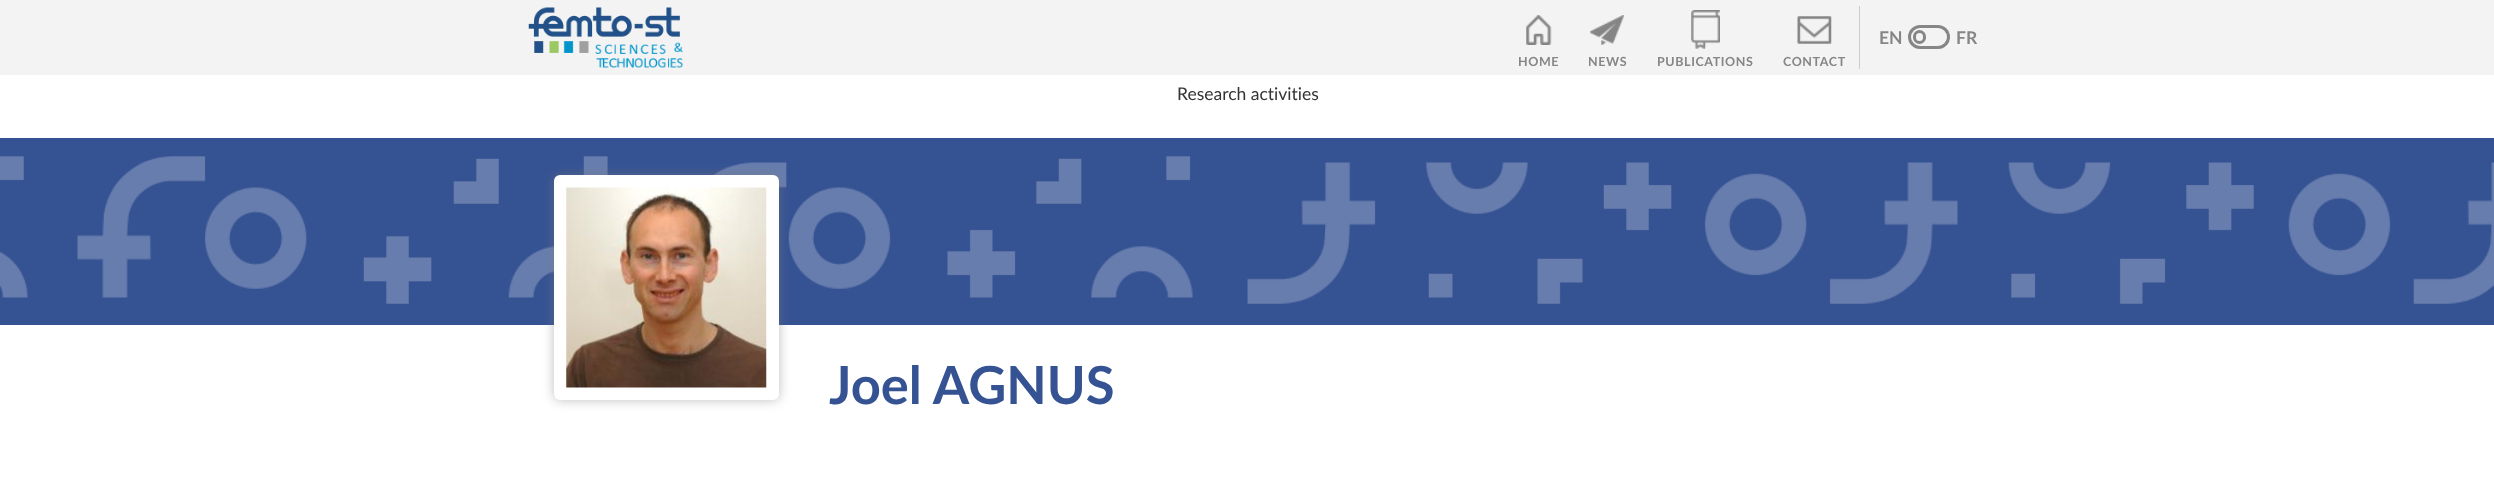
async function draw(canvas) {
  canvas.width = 2494
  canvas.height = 491
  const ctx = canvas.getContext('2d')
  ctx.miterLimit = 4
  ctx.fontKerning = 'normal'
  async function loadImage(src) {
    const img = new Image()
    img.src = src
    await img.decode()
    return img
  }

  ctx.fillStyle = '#fff'
  ctx.fillRect(0, 0, 2494, 491)
  ctx.fillStyle = '#f3f3f3'
  ctx.fillRect(0, 0, 2494, 75)
  ctx.fillStyle = '#ccc'
  ctx.fillRect(1859, 6, 1, 63)
  ctx.font = 'bold 17.5px Lato'
  ctx.fillStyle = '#868686'
  ctx.fillText('EN', 1879, 44)
  ctx.beginPath()
  ctx.roundRect(1909.5, 26.5, 39, 21, 10.5)
  ctx.strokeStyle = '#868686'
  ctx.lineWidth = 3
  ctx.stroke()
  ctx.beginPath()
  ctx.roundRect(1914.5, 31.5, 10, 11, 5)
  ctx.stroke()
  ctx.fillText('FR', 1956, 44)
  ctx.drawImage(await loadImage('image0.png'), 528, 7, 155, 61)
  ctx.drawImage(await loadImage('image1.png'), 1526, 15, 26, 30)
  ctx.letterSpacing = '0.6px'
  ctx.font = 'bold 12.5px Lato'
  ctx.fillText('HOME', 1518, 66)
  ctx.drawImage(await loadImage('image2.png'), 1590, 15, 34, 30)
  ctx.fillText('NEWS', 1588, 66)
  ctx.drawImage(await loadImage('image3.png'), 1691, 10, 29, 39)
  ctx.fillText('PUBLICATIONS', 1657, 66)
  ctx.drawImage(await loadImage('image4.png'), 1797, 16, 35, 28)
  ctx.fillText('CONTACT', 1783, 66)
  ctx.letterSpacing = '0px'
  ctx.font = '17.5px Lato'
  ctx.fillStyle = '#333'
  ctx.fillText('Research activities', 1177, 100)
  ctx.fillStyle = '#355293'
  ctx.fillRect(0, 138, 2494, 187)
  ctx.drawImage(await loadImage('image6.png'), 0, 156, 2494, 148)
  ctx.fillStyle = '#7d7d7d80'
  ctx.filter = 'blur(6px)'
  ctx.beginPath()
  ctx.roundRect(554, 175, 225, 225, 6)
  ctx.fill()
  ctx.filter = 'none'
  ctx.fillStyle = '#fff'
  ctx.beginPath()
  ctx.roundRect(554, 175, 225, 225, 6)
  ctx.fill()
  ctx.drawImage(await loadImage('image5.png'), 566, 187, 201, 201)
  ctx.font = 'bold 52.5px Lato'
  ctx.fillStyle = '#355293'
  ctx.fillText('Joel AGNUS', 829, 404)
}

draw(document.querySelector('canvas'))
